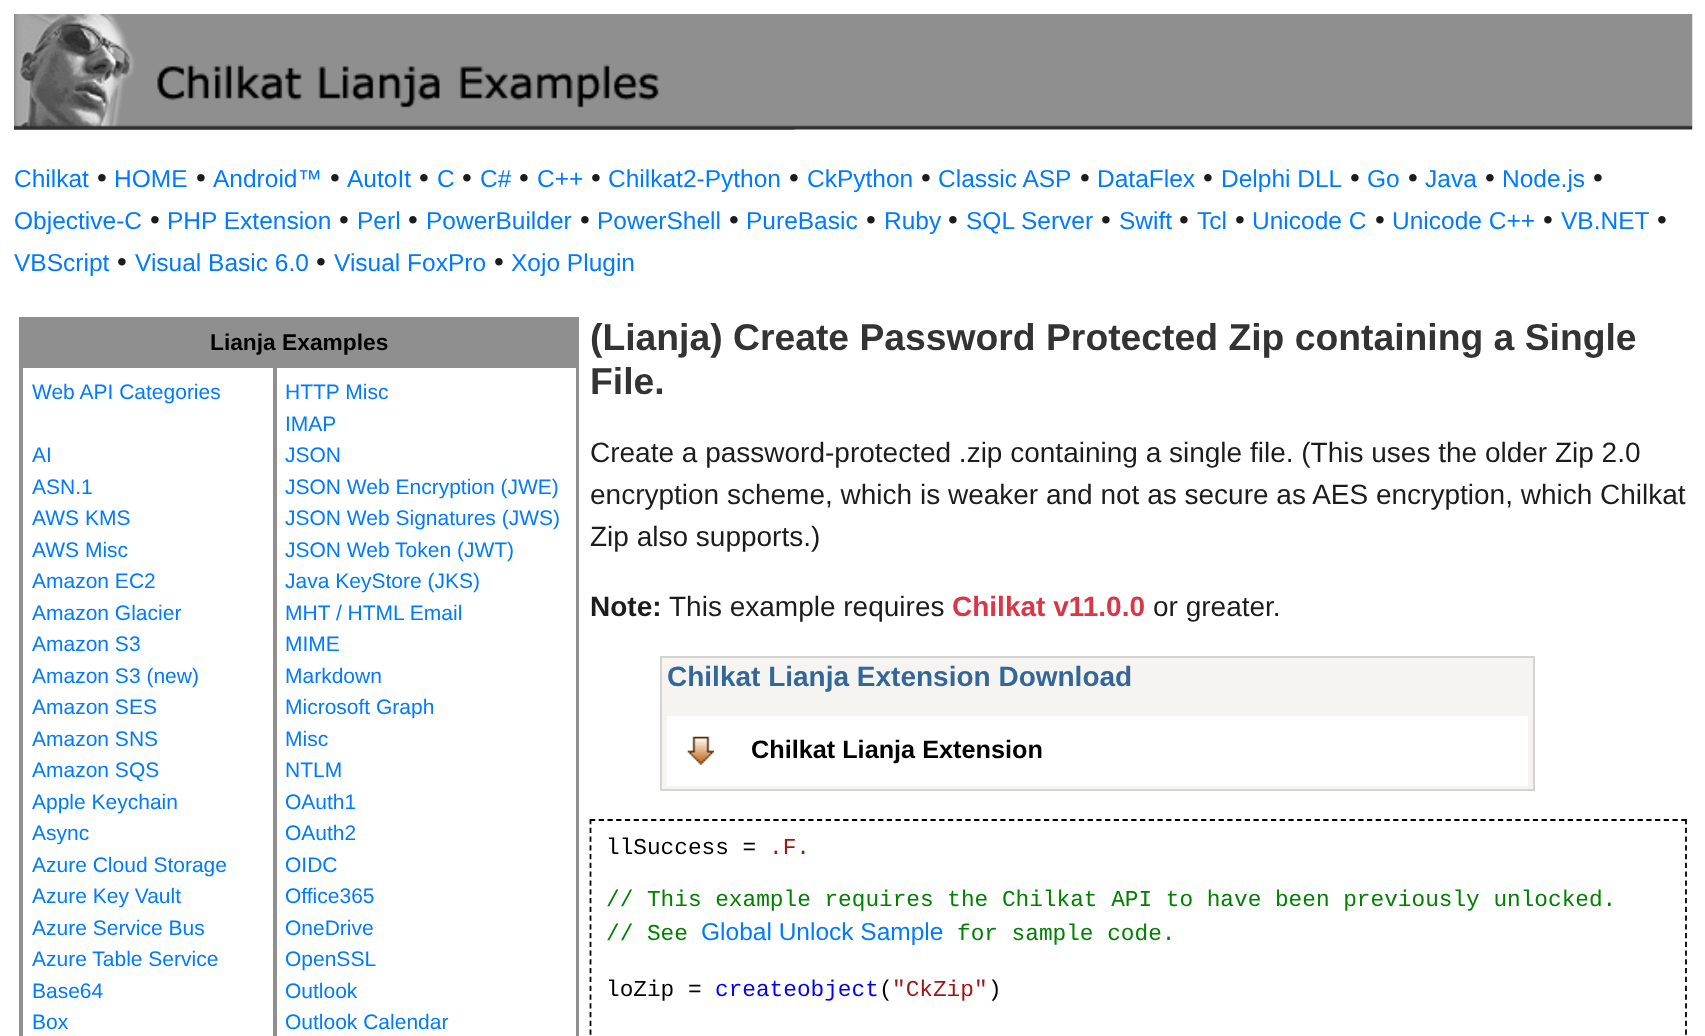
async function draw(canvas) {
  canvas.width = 1705
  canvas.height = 1036
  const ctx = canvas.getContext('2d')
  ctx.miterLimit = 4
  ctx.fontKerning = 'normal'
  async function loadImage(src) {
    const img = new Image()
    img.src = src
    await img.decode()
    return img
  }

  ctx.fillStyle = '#fff'
  ctx.fillRect(0, 0, 1705, 1036)
  ctx.drawImage(await loadImage('image0.png'), 14, 14, 1679, 116)
  ctx.drawImage(await loadImage('image1.png'), 14, 14, 781, 116)
  ctx.font = '24.5px Liberation Sans'
  ctx.fillStyle = '#007bff'
  ctx.fillText('Chilkat', 14, 187)
  ctx.font = '28px Liberation Sans'
  ctx.fillStyle = '#1c1c1c'
  ctx.fillText('•', 97, 187)
  ctx.font = '24.5px Liberation Sans'
  ctx.fillStyle = '#007bff'
  ctx.fillText('HOME', 114, 187)
  ctx.font = '28px Liberation Sans'
  ctx.fillStyle = '#1c1c1c'
  ctx.fillText('•', 196, 187)
  ctx.font = '24.5px Liberation Sans'
  ctx.fillStyle = '#007bff'
  ctx.fillText('Android™', 213, 187)
  ctx.font = '28px Liberation Sans'
  ctx.fillStyle = '#1c1c1c'
  ctx.fillText('•', 330, 187)
  ctx.font = '24.5px Liberation Sans'
  ctx.fillStyle = '#007bff'
  ctx.fillText('AutoIt', 347, 187)
  ctx.font = '28px Liberation Sans'
  ctx.fillStyle = '#1c1c1c'
  ctx.fillText('•', 419, 187)
  ctx.font = '24.5px Liberation Sans'
  ctx.fillStyle = '#007bff'
  ctx.fillText('C', 437, 187)
  ctx.font = '28px Liberation Sans'
  ctx.fillStyle = '#1c1c1c'
  ctx.fillText('•', 462, 187)
  ctx.font = '24.5px Liberation Sans'
  ctx.fillStyle = '#007bff'
  ctx.fillText('C#', 480, 187)
  ctx.font = '28px Liberation Sans'
  ctx.fillStyle = '#1c1c1c'
  ctx.fillText('•', 519, 187)
  ctx.font = '24.5px Liberation Sans'
  ctx.fillStyle = '#007bff'
  ctx.fillText('C++', 537, 187)
  ctx.font = '28px Liberation Sans'
  ctx.fillStyle = '#1c1c1c'
  ctx.fillText('•', 591, 187)
  ctx.font = '24.5px Liberation Sans'
  ctx.fillStyle = '#007bff'
  ctx.fillText('Chilkat2-Python', 608, 187)
  ctx.font = '28px Liberation Sans'
  ctx.fillStyle = '#1c1c1c'
  ctx.fillText('•', 789, 187)
  ctx.font = '24.5px Liberation Sans'
  ctx.fillStyle = '#007bff'
  ctx.fillText('CkPython', 807, 187)
  ctx.font = '28px Liberation Sans'
  ctx.fillStyle = '#1c1c1c'
  ctx.fillText('•', 921, 187)
  ctx.font = '24.5px Liberation Sans'
  ctx.fillStyle = '#007bff'
  ctx.fillText('Classic ASP', 938, 187)
  ctx.font = '28px Liberation Sans'
  ctx.fillStyle = '#1c1c1c'
  ctx.fillText('•', 1080, 187)
  ctx.font = '24.5px Liberation Sans'
  ctx.fillStyle = '#007bff'
  ctx.fillText('DataFlex', 1097, 187)
  ctx.font = '28px Liberation Sans'
  ctx.fillStyle = '#1c1c1c'
  ctx.fillText('•', 1203, 187)
  ctx.font = '24.5px Liberation Sans'
  ctx.fillStyle = '#007bff'
  ctx.fillText('Delphi DLL', 1221, 187)
  ctx.font = '28px Liberation Sans'
  ctx.fillStyle = '#1c1c1c'
  ctx.fillText('•', 1350, 187)
  ctx.font = '24.5px Liberation Sans'
  ctx.fillStyle = '#007bff'
  ctx.fillText('Go', 1367, 187)
  ctx.font = '28px Liberation Sans'
  ctx.fillStyle = '#1c1c1c'
  ctx.fillText('•', 1408, 187)
  ctx.font = '24.5px Liberation Sans'
  ctx.fillStyle = '#007bff'
  ctx.fillText('Java', 1425, 187)
  ctx.font = '28px Liberation Sans'
  ctx.fillStyle = '#1c1c1c'
  ctx.fillText('•', 1485, 187)
  ctx.font = '24.5px Liberation Sans'
  ctx.fillStyle = '#007bff'
  ctx.fillText('Node.js', 1502, 187)
  ctx.font = '28px Liberation Sans'
  ctx.fillStyle = '#1c1c1c'
  ctx.fillText('•', 1593, 187)
  ctx.font = '24.5px Liberation Sans'
  ctx.fillStyle = '#007bff'
  ctx.fillText('Objective-C', 14, 229)
  ctx.font = '28px Liberation Sans'
  ctx.fillStyle = '#1c1c1c'
  ctx.fillText('•', 150, 229)
  ctx.font = '24.5px Liberation Sans'
  ctx.fillStyle = '#007bff'
  ctx.fillText('PHP Extension', 167, 229)
  ctx.font = '28px Liberation Sans'
  ctx.fillStyle = '#1c1c1c'
  ctx.fillText('•', 339, 229)
  ctx.font = '24.5px Liberation Sans'
  ctx.fillStyle = '#007bff'
  ctx.fillText('Perl', 357, 229)
  ctx.font = '28px Liberation Sans'
  ctx.fillStyle = '#1c1c1c'
  ctx.fillText('•', 408, 229)
  ctx.font = '24.5px Liberation Sans'
  ctx.fillStyle = '#007bff'
  ctx.fillText('PowerBuilder', 426, 229)
  ctx.font = '28px Liberation Sans'
  ctx.fillStyle = '#1c1c1c'
  ctx.fillText('•', 580, 229)
  ctx.font = '24.5px Liberation Sans'
  ctx.fillStyle = '#007bff'
  ctx.fillText('PowerShell', 597, 229)
  ctx.font = '28px Liberation Sans'
  ctx.fillStyle = '#1c1c1c'
  ctx.fillText('•', 729, 229)
  ctx.font = '24.5px Liberation Sans'
  ctx.fillStyle = '#007bff'
  ctx.fillText('PureBasic', 746, 229)
  ctx.font = '28px Liberation Sans'
  ctx.fillStyle = '#1c1c1c'
  ctx.fillText('•', 866, 229)
  ctx.font = '24.5px Liberation Sans'
  ctx.fillStyle = '#007bff'
  ctx.fillText('Ruby', 884, 229)
  ctx.font = '28px Liberation Sans'
  ctx.fillStyle = '#1c1c1c'
  ctx.fillText('•', 948, 229)
  ctx.font = '24.5px Liberation Sans'
  ctx.fillStyle = '#007bff'
  ctx.fillText('SQL Server', 966, 229)
  ctx.font = '28px Liberation Sans'
  ctx.fillStyle = '#1c1c1c'
  ctx.fillText('•', 1101, 229)
  ctx.font = '24.5px Liberation Sans'
  ctx.fillStyle = '#007bff'
  ctx.fillText('Swift', 1119, 229)
  ctx.font = '28px Liberation Sans'
  ctx.fillStyle = '#1c1c1c'
  ctx.fillText('•', 1179, 229)
  ctx.font = '24.5px Liberation Sans'
  ctx.fillStyle = '#007bff'
  ctx.fillText('Tcl', 1197, 229)
  ctx.font = '28px Liberation Sans'
  ctx.fillStyle = '#1c1c1c'
  ctx.fillText('•', 1235, 229)
  ctx.font = '24.5px Liberation Sans'
  ctx.fillStyle = '#007bff'
  ctx.fillText('Unicode C', 1252, 229)
  ctx.font = '28px Liberation Sans'
  ctx.fillStyle = '#1c1c1c'
  ctx.fillText('•', 1375, 229)
  ctx.font = '24.5px Liberation Sans'
  ctx.fillStyle = '#007bff'
  ctx.fillText('Unicode C++', 1392, 229)
  ctx.font = '28px Liberation Sans'
  ctx.fillStyle = '#1c1c1c'
  ctx.fillText('•', 1543, 229)
  ctx.font = '24.5px Liberation Sans'
  ctx.fillStyle = '#007bff'
  ctx.fillText('VB.NET', 1561, 229)
  ctx.font = '28px Liberation Sans'
  ctx.fillStyle = '#1c1c1c'
  ctx.fillText('•', 1657, 229)
  ctx.font = '24.5px Liberation Sans'
  ctx.fillStyle = '#007bff'
  ctx.fillText('VBScript', 14, 271)
  ctx.font = '28px Liberation Sans'
  ctx.fillStyle = '#1c1c1c'
  ctx.fillText('•', 117, 271)
  ctx.font = '24.5px Liberation Sans'
  ctx.fillStyle = '#007bff'
  ctx.fillText('Visual Basic 6.0', 135, 271)
  ctx.font = '28px Liberation Sans'
  ctx.fillStyle = '#1c1c1c'
  ctx.fillText('•', 316, 271)
  ctx.font = '24.5px Liberation Sans'
  ctx.fillStyle = '#007bff'
  ctx.fillText('Visual FoxPro', 334, 271)
  ctx.font = '28px Liberation Sans'
  ctx.fillStyle = '#1c1c1c'
  ctx.fillText('•', 494, 271)
  ctx.font = '24.5px Liberation Sans'
  ctx.fillStyle = '#007bff'
  ctx.fillText('Xojo Plugin', 511, 271)
  ctx.strokeStyle = '#8f8f8f'
  ctx.lineWidth = 2
  ctx.strokeRect(20, 318, 558, 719)
  ctx.fillStyle = '#8f8f8f'
  ctx.fillRect(21, 319, 556, 47)
  ctx.font = 'bold 22.75px Liberation Sans'
  ctx.fillStyle = '#000'
  ctx.fillText('Lianja Examples', 210, 350)
  ctx.strokeRect(22, 367, 252, 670)
  ctx.font = '21px Liberation Sans'
  ctx.fillStyle = '#007bff'
  ctx.fillText('Web API Categories', 32, 399)
  ctx.fillText('AI', 32, 462)
  ctx.fillText('ASN.1', 32, 494)
  ctx.fillText('AWS KMS', 32, 525)
  ctx.fillText('AWS Misc', 32, 557)
  ctx.fillText('Amazon EC2', 32, 588)
  ctx.fillText('Amazon Glacier', 32, 620)
  ctx.fillText('Amazon S3', 32, 651)
  ctx.fillText('Amazon S3 (new)', 32, 683)
  ctx.fillText('Amazon SES', 32, 714)
  ctx.fillText('Amazon SNS', 32, 746)
  ctx.fillText('Amazon SQS', 32, 777)
  ctx.fillText('Apple Keychain', 32, 809)
  ctx.fillText('Async', 32, 840)
  ctx.fillText('Azure Cloud Storage', 32, 872)
  ctx.fillText('Azure Key Vault', 32, 903)
  ctx.fillText('Azure Service Bus', 32, 935)
  ctx.fillText('Azure Table Service', 32, 966)
  ctx.fillText('Base64', 32, 998)
  ctx.fillText('Box', 32, 1029)
  ctx.strokeRect(276, 367, 301, 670)
  ctx.fillText('HTTP Misc', 285, 399)
  ctx.fillText('IMAP', 285, 431)
  ctx.fillText('JSON', 285, 462)
  ctx.fillText('JSON Web Encryption (JWE)', 285, 494)
  ctx.fillText('JSON Web Signatures (JWS)', 285, 525)
  ctx.fillText('JSON Web Token (JWT)', 285, 557)
  ctx.fillText('Java KeyStore (JKS)', 285, 588)
  ctx.fillText('MHT / HTML Email', 285, 620)
  ctx.fillText('MIME', 285, 651)
  ctx.fillText('Markdown', 285, 683)
  ctx.fillText('Microsoft Graph', 285, 714)
  ctx.fillText('Misc', 285, 746)
  ctx.fillText('NTLM', 285, 777)
  ctx.fillText('OAuth1', 285, 809)
  ctx.fillText('OAuth2', 285, 840)
  ctx.fillText('OIDC', 285, 872)
  ctx.fillText('Office365', 285, 903)
  ctx.fillText('OneDrive', 285, 935)
  ctx.fillText('OpenSSL', 285, 966)
  ctx.fillText('Outlook', 285, 998)
  ctx.fillText('Outlook Calendar', 285, 1029)
  ctx.font = 'bold 37.3px Liberation Sans'
  ctx.fillStyle = '#333'
  ctx.fillText('(Lianja) Create Password Protected Zip containing a Single', 590, 350)
  ctx.fillText('File.', 590, 394)
  ctx.font = '28px Liberation Sans'
  ctx.fillStyle = '#1c1c1c'
  ctx.fillText('Create a password-protected .zip containing a single file. (This uses the older Zip 2.0', 590, 462)
  ctx.fillText('encryption scheme, which is weaker and not as secure as AES encryption, which Chilkat', 590, 504)
  ctx.fillText('Zip also supports.)', 590, 546)
  ctx.font = 'bold 28px Liberation Sans'
  ctx.fillText('Note:', 590, 616)
  ctx.font = '28px Liberation Sans'
  ctx.fillText('This example requires', 669, 616)
  ctx.font = 'bold 28px Liberation Sans'
  ctx.fillStyle = '#dc3545'
  ctx.fillText('Chilkat v11.0.0', 952, 616)
  ctx.font = '28px Liberation Sans'
  ctx.fillStyle = '#1c1c1c'
  ctx.fillText('or greater.', 1153, 616)
  ctx.fillStyle = '#f6f4f0'
  ctx.fillRect(662, 658, 871, 131)
  ctx.fillStyle = '#d4d4d4'
  ctx.fillRect(660, 656, 875, 2)
  ctx.fillRect(1533, 656, 2, 135)
  ctx.fillRect(660, 789, 875, 2)
  ctx.fillRect(660, 656, 2, 135)
  ctx.font = 'bold 28px Liberation Sans'
  ctx.fillStyle = '#369'
  ctx.fillText('Chilkat Lianja Extension Download', 667, 686)
  ctx.fillStyle = '#fff'
  ctx.fillRect(667, 716, 861, 70)
  ctx.drawImage(await loadImage('image2.png'), 687, 736, 27, 29)
  ctx.font = 'bold 25.25px Liberation Sans'
  ctx.fillStyle = '#000'
  ctx.fillText('Chilkat Lianja Extension', 751, 758)
  ctx.beginPath()
  ctx.moveTo(590, 820)
  ctx.lineTo(1687, 820)
  ctx.strokeStyle = '#000'
  ctx.lineWidth = 1.8
  ctx.setLineDash([5.25, 3.48])
  ctx.stroke()
  ctx.beginPath()
  ctx.moveTo(1686, 819)
  ctx.lineTo(1686, 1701)
  ctx.setLineDash([5.25, 3.52])
  ctx.stroke()
  ctx.beginPath()
  ctx.moveTo(590.5, 819)
  ctx.lineTo(590.5, 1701)
  ctx.stroke()
  ctx.font = '22.75px Liberation Mono'
  ctx.fillText('llSuccess =', 606, 854)
  ctx.fillStyle = '#a31515'
  ctx.fillText('.F.', 769, 854)
  ctx.fillStyle = '#008000'
  ctx.fillText('// This example requires the Chilkat API to have been previously unlocked.', 606, 906)
  ctx.fillText('// See', 606, 940)
  ctx.font = '24.5px Liberation Sans'
  ctx.fillStyle = '#007bff'
  ctx.fillText('Global Unlock Sample', 701, 940)
  ctx.font = '22.75px Liberation Mono'
  ctx.fillStyle = '#008000'
  ctx.fillText('for sample code.', 957, 940)
  ctx.fillStyle = '#000'
  ctx.fillText('loZip =', 606, 996)
  ctx.fillStyle = '#00f'
  ctx.fillText('createobject', 715, 996)
  ctx.fillStyle = '#000'
  ctx.fillText('(', 879, 996)
  ctx.fillStyle = '#a31515'
  ctx.fillText('"CkZip"', 892, 996)
  ctx.fillStyle = '#000'
  ctx.fillText(')', 988, 996)
}

draw(document.querySelector('canvas'))
